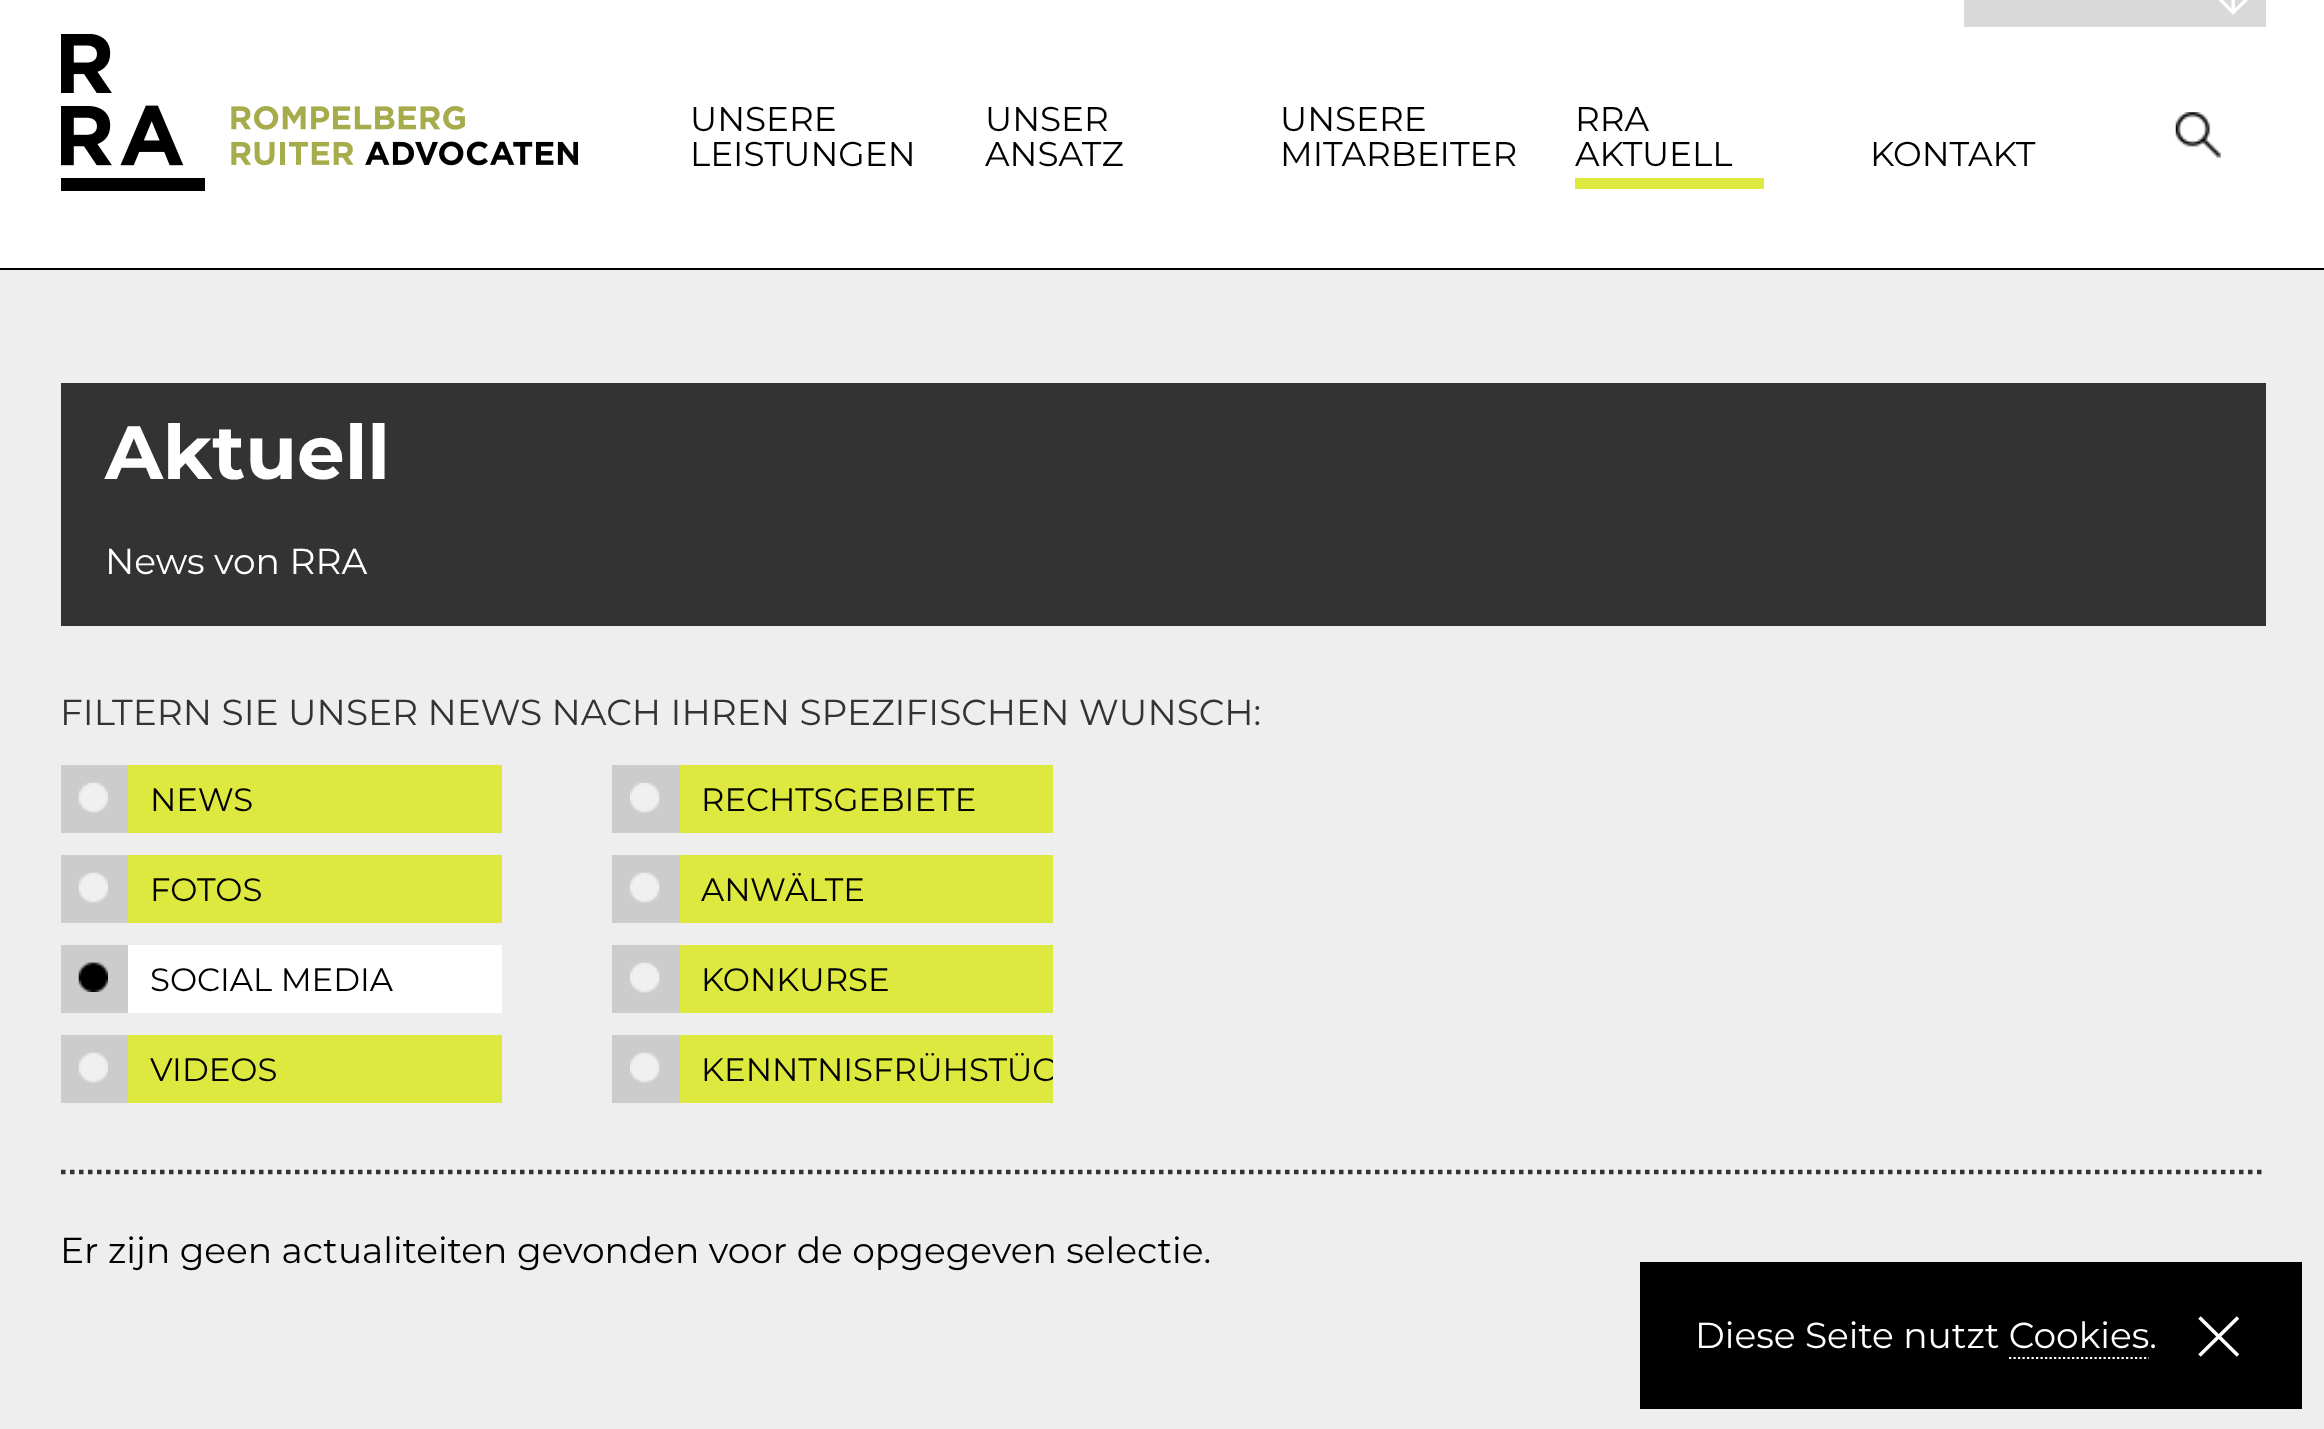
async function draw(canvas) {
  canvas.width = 2324
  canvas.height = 1429
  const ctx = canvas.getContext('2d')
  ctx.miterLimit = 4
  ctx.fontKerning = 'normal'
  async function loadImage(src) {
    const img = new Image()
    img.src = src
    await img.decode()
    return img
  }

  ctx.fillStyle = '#eee'
  ctx.fillRect(0, 0, 2324, 1429)
  ctx.fillStyle = '#fff'
  ctx.fillRect(0, 0, 2324, 268)
  ctx.fillStyle = '#000'
  ctx.fillRect(0, 268, 2324, 2)
  ctx.fillStyle = '#d9d9d9'
  ctx.fillRect(1964, 0, 302, 27)
  ctx.fillStyle = '#fff'
  ctx.beginPath()
  ctx.moveTo(2231.5, -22)
  ctx.lineTo(2231.5, 8.5)
  ctx.lineTo(2216.5, -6.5)
  ctx.lineTo(2216.5, -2)
  ctx.lineTo(2233, 15)
  ctx.lineTo(2250, -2)
  ctx.lineTo(2250, -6.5)
  ctx.lineTo(2235, 8.5)
  ctx.lineTo(2235, -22)
  ctx.closePath()
  ctx.fill()
  ctx.drawImage(await loadImage('image0.png'), 61, 34, 517, 157)
  ctx.font = '34.25px Montserrat'
  ctx.fillStyle = '#000'
  ctx.fillText('UNSERE', 690, 131)
  ctx.fillText('LEISTUNGEN', 690, 166)
  ctx.fillText('UNSER', 985, 131)
  ctx.fillText('ANSATZ', 985, 166)
  ctx.fillText('UNSERE', 1280, 131)
  ctx.fillText('MITARBEITER', 1280, 166)
  ctx.fillStyle = '#dee93f'
  ctx.fillRect(1575, 178, 189, 11)
  ctx.fillStyle = '#000'
  ctx.fillText('RRA', 1575, 131)
  ctx.fillText('AKTUELL', 1575, 166)
  ctx.fillText('KONTAKT', 1870, 166)
  ctx.drawImage(await loadImage('image1.png'), 2175, 112, 46, 46)
  ctx.fillStyle = '#333'
  ctx.fillRect(61, 383, 2205, 243)
  ctx.font = 'bold 75.5px Montserrat'
  ctx.fillStyle = '#fff'
  ctx.fillText('Aktuell', 105, 479)
  ctx.font = '36px Montserrat'
  ctx.fillText('News von RRA', 105, 574)
  ctx.fillStyle = '#333'
  ctx.fillText('FILTERN SIE UNSER NEWS NACH IHREN SPEZIFISCHEN WUNSCH:', 60, 725)
  ctx.fillStyle = '#dee93f'
  ctx.fillRect(128, 765, 374, 68)
  ctx.fillStyle = '#ccc'
  ctx.fillRect(61, 765, 67, 68)
  ctx.drawImage(await loadImage('image2.png'), 78, 782, 30, 31)
  ctx.font = '32.4px Montserrat'
  ctx.fillStyle = '#000'
  ctx.fillText('NEWS', 150, 811)
  ctx.fillStyle = '#dee93f'
  ctx.fillRect(128, 855, 374, 68)
  ctx.fillStyle = '#ccc'
  ctx.fillRect(61, 855, 67, 68)
  ctx.drawImage(await loadImage('image3.png'), 78, 872, 30, 31)
  ctx.fillStyle = '#000'
  ctx.fillText('FOTOS', 150, 901)
  ctx.fillStyle = '#fff'
  ctx.fillRect(128, 945, 374, 68)
  ctx.fillStyle = '#ccc'
  ctx.fillRect(61, 945, 67, 68)
  ctx.drawImage(await loadImage('image4.png'), 78, 962, 30, 30)
  ctx.fillStyle = '#000'
  ctx.fillText('SOCIAL MEDIA', 150, 991)
  ctx.fillStyle = '#dee93f'
  ctx.fillRect(128, 1035, 374, 68)
  ctx.fillStyle = '#ccc'
  ctx.fillRect(61, 1035, 67, 68)
  ctx.drawImage(await loadImage('image3.png'), 78, 1052, 30, 31)
  ctx.fillStyle = '#000'
  ctx.fillText('VIDEOS', 150, 1081)
  ctx.fillStyle = '#dee93f'
  ctx.fillRect(680, 765, 373, 68)
  ctx.fillStyle = '#ccc'
  ctx.fillRect(612, 765, 68, 68)
  ctx.drawImage(await loadImage('image5.png'), 630, 782, 30, 31)
  ctx.fillStyle = '#000'
  ctx.fillText('RECHTSGEBIETE', 701, 811)
  ctx.fillStyle = '#dee93f'
  ctx.fillRect(680, 855, 373, 68)
  ctx.fillStyle = '#ccc'
  ctx.fillRect(612, 855, 68, 68)
  ctx.drawImage(await loadImage('image6.png'), 630, 872, 30, 31)
  ctx.fillStyle = '#000'
  ctx.fillText('ANWÄLTE', 701, 901)
  ctx.fillStyle = '#dee93f'
  ctx.fillRect(680, 945, 373, 68)
  ctx.fillStyle = '#ccc'
  ctx.fillRect(612, 945, 68, 68)
  ctx.drawImage(await loadImage('image6.png'), 630, 962, 30, 31)
  ctx.fillStyle = '#000'
  ctx.fillText('KONKURSE', 701, 991)
  ctx.fillStyle = '#dee93f'
  ctx.fillRect(680, 1035, 373, 68)
  ctx.fillStyle = '#ccc'
  ctx.fillRect(612, 1035, 68, 68)
  ctx.drawImage(await loadImage('image6.png'), 630, 1052, 30, 31)
  ctx.save()
  ctx.beginPath()
  ctx.rect(612, 1035, 441, 68)
  ctx.clip()
  ctx.fillStyle = '#000'
  ctx.fillText('KENNTNISFRÜHSTÜC', 701, 1081)
  ctx.restore()
  ctx.beginPath()
  ctx.moveTo(61, 1172)
  ctx.lineTo(2266, 1172)
  ctx.strokeStyle = '#333'
  ctx.lineWidth = 4.5
  ctx.setLineDash([4.5, 4.5])
  ctx.stroke()
  ctx.font = '36px Montserrat'
  ctx.fillStyle = '#000'
  ctx.fillText('Er zijn geen actualiteiten gevonden voor de opgegeven selectie.', 60, 1263)
  ctx.fillRect(1640, 1262, 662, 147)
  ctx.fillStyle = '#fff'
  ctx.fillText('Diese Seite nutzt Cookies.', 1695, 1348)
  ctx.beginPath()
  ctx.moveTo(2199.5, 1317.5)
  ctx.lineTo(2238, 1355.5)
  ctx.moveTo(2199.5, 1355.5)
  ctx.lineTo(2238, 1317.5)
  ctx.strokeStyle = '#fff'
  ctx.lineWidth = 3.6
  ctx.setLineDash([])
  ctx.stroke()
  ctx.beginPath()
  ctx.moveTo(2009, 1358)
  ctx.lineTo(2149, 1358)
  ctx.lineWidth = 2.2
  ctx.setLineDash([2.25, 2.25])
  ctx.stroke()
}

draw(document.querySelector('canvas'))
